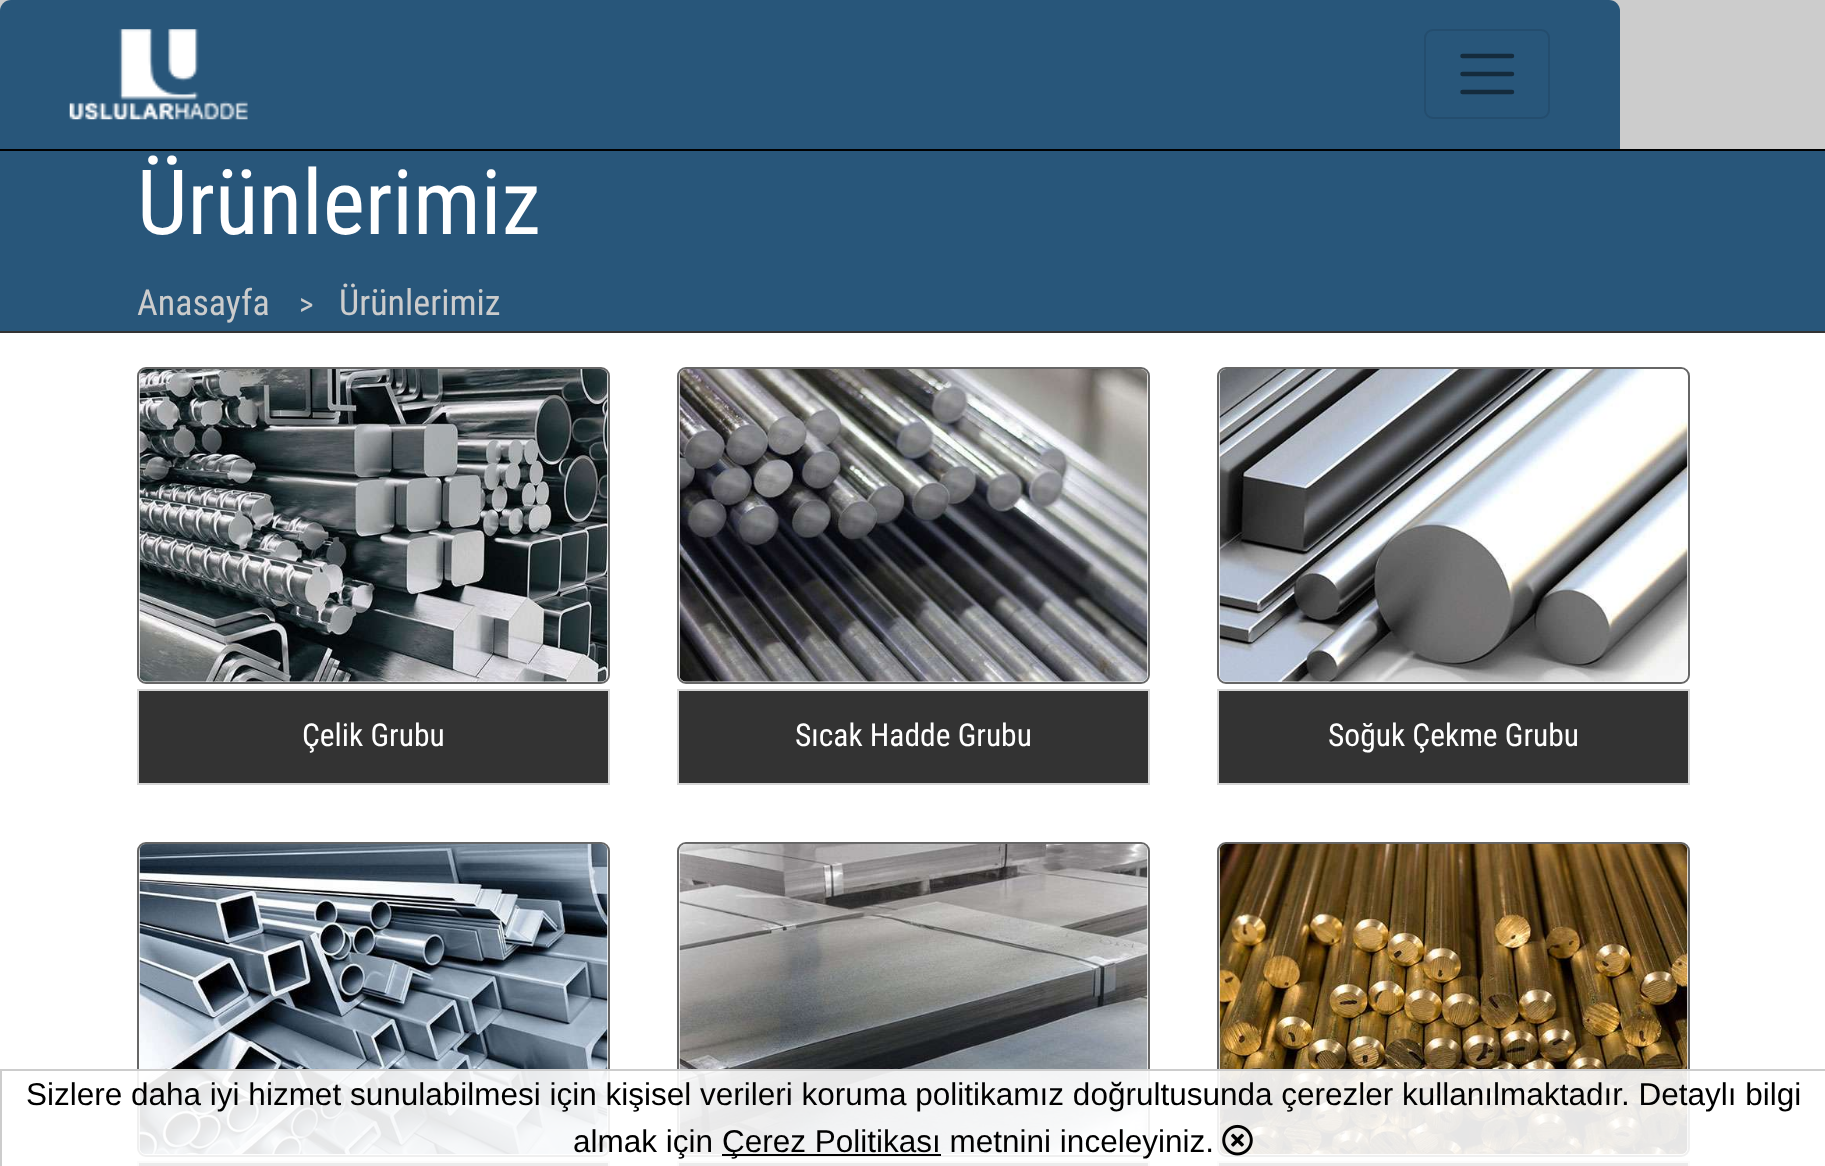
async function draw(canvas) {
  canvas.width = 1825
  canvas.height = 1166
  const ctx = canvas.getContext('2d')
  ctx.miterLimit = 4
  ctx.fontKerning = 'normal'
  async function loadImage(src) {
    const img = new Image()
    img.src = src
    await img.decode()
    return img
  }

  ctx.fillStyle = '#fff'
  ctx.fillRect(0, 0, 1825, 1166)
  ctx.fillStyle = '#ccc'
  ctx.fillRect(0, 0, 1825, 149)
  ctx.fillStyle = '#000'
  ctx.fillRect(0, 149, 1825, 2)
  ctx.fillStyle = '#28567a'
  ctx.beginPath()
  ctx.roundRect(0, 0, 1620, 149, [11, 11, 0, 0])
  ctx.fill()
  ctx.drawImage(await loadImage('image0.png'), 69, 29, 179, 91)
  ctx.beginPath()
  ctx.roundRect(1425, 30, 124, 88, 8)
  ctx.strokeStyle = '#244d6e'
  ctx.lineWidth = 2
  ctx.stroke()
  ctx.beginPath()
  ctx.moveTo(1462.5, 56)
  ctx.lineTo(1512, 56)
  ctx.moveTo(1462.5, 74)
  ctx.lineTo(1512, 74)
  ctx.moveTo(1462.5, 92)
  ctx.lineTo(1512, 92)
  ctx.strokeStyle = '#142b3d'
  ctx.lineWidth = 4.5
  ctx.lineCap = 'round'
  ctx.stroke()
  ctx.fillRect(0, 151, 1825, 180)
  ctx.fillStyle = '#333'
  ctx.fillRect(0, 331, 1825, 2)
  ctx.font = '90px Roboto Condensed'
  ctx.fillStyle = '#fff'
  ctx.fillText('Ürünlerimiz', 137, 234)
  ctx.font = '36px Roboto Condensed'
  ctx.fillStyle = '#ccc'
  ctx.fillText('Anasayfa', 137, 315)
  ctx.font = '31.5px Roboto Condensed'
  ctx.fillText('>', 299, 315)
  ctx.font = '36px Roboto Condensed'
  ctx.fillText('Ürünlerimiz', 339, 315)
  ctx.beginPath()
  ctx.roundRect(138, 368, 471, 315, 8)
  ctx.strokeStyle = '#666'
  ctx.lineWidth = 2
  ctx.stroke()
  ctx.drawImage(await loadImage('image1.png'), 139, 369, 469, 313)
  ctx.fillStyle = '#333'
  ctx.beginPath()
  ctx.rect(138, 690, 471, 94)
  ctx.fill()
  ctx.strokeStyle = '#d6d6d6'
  ctx.stroke()
  ctx.font = '31.5px Roboto Condensed'
  ctx.fillStyle = '#fff'
  ctx.fillText('Çelik Grubu', 302, 746)
  ctx.beginPath()
  ctx.roundRect(678, 368, 471, 315, 8)
  ctx.strokeStyle = '#666'
  ctx.stroke()
  ctx.drawImage(await loadImage('image2.png'), 679, 369, 469, 313)
  ctx.fillStyle = '#333'
  ctx.beginPath()
  ctx.rect(678, 690, 471, 94)
  ctx.fill()
  ctx.strokeStyle = '#d6d6d6'
  ctx.stroke()
  ctx.fillStyle = '#fff'
  ctx.fillText('Sıcak Hadde Grubu', 795, 746)
  ctx.beginPath()
  ctx.roundRect(1218, 368, 471, 315, 8)
  ctx.strokeStyle = '#666'
  ctx.stroke()
  ctx.drawImage(await loadImage('image3.png'), 1219, 369, 469, 313)
  ctx.fillStyle = '#333'
  ctx.beginPath()
  ctx.rect(1218, 690, 471, 94)
  ctx.fill()
  ctx.strokeStyle = '#d6d6d6'
  ctx.stroke()
  ctx.fillStyle = '#fff'
  ctx.fillText('Soğuk Çekme Grubu', 1328, 746)
  ctx.beginPath()
  ctx.roundRect(138, 843, 471, 313, 8)
  ctx.strokeStyle = '#666'
  ctx.stroke()
  ctx.drawImage(await loadImage('image4.png'), 139, 843, 469, 312)
  ctx.fillStyle = '#333'
  ctx.beginPath()
  ctx.rect(138, 1162, 471, 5)
  ctx.fill()
  ctx.strokeStyle = '#d6d6d6'
  ctx.stroke()
  ctx.beginPath()
  ctx.roundRect(678, 843, 471, 313, 8)
  ctx.strokeStyle = '#666'
  ctx.stroke()
  ctx.drawImage(await loadImage('image5.png'), 679, 843, 469, 312)
  ctx.beginPath()
  ctx.rect(678, 1162, 471, 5)
  ctx.fill()
  ctx.strokeStyle = '#d6d6d6'
  ctx.stroke()
  ctx.beginPath()
  ctx.roundRect(1218, 843, 471, 313, 8)
  ctx.strokeStyle = '#666'
  ctx.stroke()
  ctx.drawImage(await loadImage('image6.png'), 1219, 843, 469, 312)
  ctx.beginPath()
  ctx.rect(1218, 1162, 471, 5)
  ctx.fill()
  ctx.strokeStyle = '#d6d6d6'
  ctx.stroke()
  ctx.fillStyle = '#ffffffe6'
  ctx.fillRect(137, 1071, 1553, 95)
  ctx.strokeStyle = '#ccc'
  ctx.strokeRect(1, 1070, 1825, 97)
  ctx.font = '31.5px Liberation Sans'
  ctx.fillStyle = '#000'
  ctx.fillText('Sizlere daha iyi hizmet sunulabilmesi için kişisel verileri koruma politikamız doğrultusunda çerezler kullanılmaktadır. Detaylı bilgi', 26, 1105)
  ctx.fillText('almak için', 573, 1152)
  ctx.fillRect(722, 1154, 219, 2)
  ctx.fillText('Çerez Politikası metnini inceleyiniz.', 722, 1152)
  ctx.drawImage(await loadImage('image7.png'), 1222, 1124, 31, 32)
}

draw(document.querySelector('canvas'))
